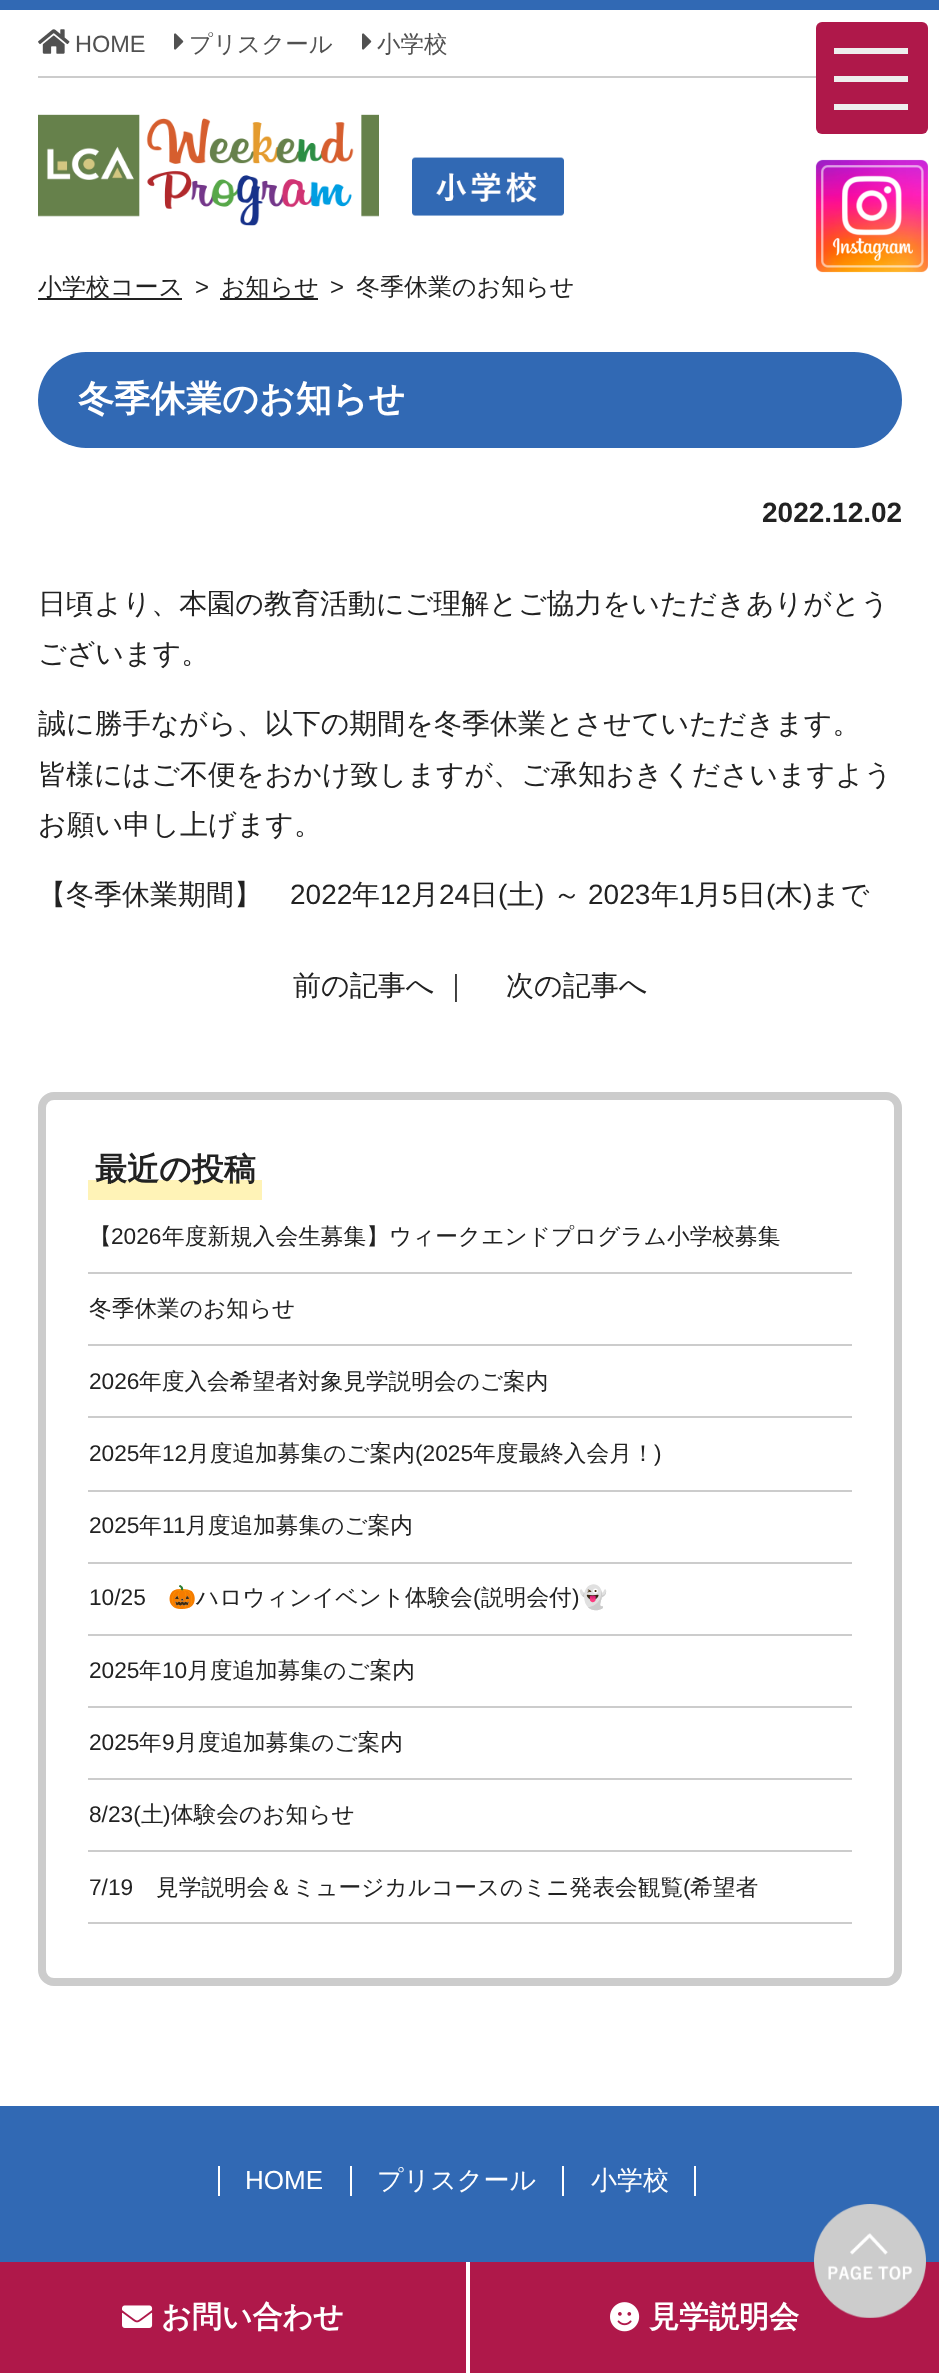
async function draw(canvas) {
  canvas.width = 939
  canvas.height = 2373
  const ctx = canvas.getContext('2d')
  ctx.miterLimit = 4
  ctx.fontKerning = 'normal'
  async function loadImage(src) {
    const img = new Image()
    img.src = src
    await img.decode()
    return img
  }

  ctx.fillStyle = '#fff'
  ctx.fillRect(0, 0, 939, 2373)
  ctx.fillStyle = '#3169b4'
  ctx.fillRect(0, 0, 939, 10)
  ctx.fillStyle = '#ccc'
  ctx.fillRect(38, 76, 778, 2)
  ctx.drawImage(await loadImage('image0.png'), 38, 29, 32, 25)
  ctx.font = '23.5px Liberation Sans'
  ctx.fillStyle = '#515151'
  ctx.fillText('HOME', 75, 52)
  ctx.drawImage(await loadImage('image1.png'), 174, 33, 10, 17)
  ctx.font = '500 23.5px WenQuanYi Zen Hei'
  ctx.fillText('プリスクール', 189, 52)
  ctx.drawImage(await loadImage('image1.png'), 362, 33, 10, 17)
  ctx.fillText('小学校', 377, 52)
  ctx.drawImage(await loadImage('image2.png'), 38, 114, 526, 112)
  ctx.fillStyle = '#af184a'
  ctx.beginPath()
  ctx.roundRect(816, 22, 112, 112, 6)
  ctx.fill()
  ctx.fillStyle = '#eee'
  ctx.fillRect(834, 48, 74, 6)
  ctx.fillRect(834, 76, 74, 6)
  ctx.fillRect(834, 104, 74, 6)
  ctx.drawImage(await loadImage('image3.png'), 815, 159, 113, 114)
  ctx.fillStyle = '#222'
  ctx.fillRect(38, 298, 144, 2)
  ctx.font = '500 24px WenQuanYi Zen Hei'
  ctx.fillText('小学校コース', 38, 295)
  ctx.font = '24px Liberation Sans'
  ctx.fillText('>', 195, 295)
  ctx.fillRect(220, 298, 98, 2)
  ctx.font = '500 24px WenQuanYi Zen Hei'
  ctx.fillText('お知らせ', 221, 295)
  ctx.font = '24px Liberation Sans'
  ctx.fillText('>', 330, 295)
  ctx.font = '500 24px WenQuanYi Zen Hei'
  ctx.fillText('冬季休業のお知らせ', 356, 295)
  ctx.fillStyle = '#3169b4'
  ctx.beginPath()
  ctx.roundRect(38, 352, 864, 96, 48)
  ctx.fill()
  ctx.font = 'bold 36px WenQuanYi Zen Hei'
  ctx.fillStyle = '#fff'
  ctx.fillText('冬季休業のお知らせ', 78, 411)
  ctx.font = 'bold 28px Liberation Sans'
  ctx.fillStyle = '#222'
  ctx.fillText('2022.12.02', 762, 522)
  ctx.font = '500 28px WenQuanYi Zen Hei'
  ctx.fillText('日頃より、本園の教育活動にご理解とご協力をいただきありがとう', 38, 613)
  ctx.fillText('ございます。', 38, 663)
  ctx.fillText('誠に勝手ながら、以下の期間を冬季休業とさせていただきます。', 38, 733)
  ctx.fillText('皆様にはご不便をおかけ致しますが、ご承知おきくださいますよう', 38, 784)
  ctx.fillText('お願い申し上げます。', 38, 834)
  ctx.fillText('【冬季休業期間】', 38, 904)
  ctx.font = '28px Liberation Sans'
  ctx.fillText('2022', 290, 904)
  ctx.font = '500 28px WenQuanYi Zen Hei'
  ctx.fillText('年', 352, 904)
  ctx.font = '28px Liberation Sans'
  ctx.fillText('12', 380, 904)
  ctx.font = '500 28px WenQuanYi Zen Hei'
  ctx.fillText('月', 411, 904)
  ctx.font = '28px Liberation Sans'
  ctx.fillText('24', 439, 904)
  ctx.font = '500 28px WenQuanYi Zen Hei'
  ctx.fillText('日', 470, 904)
  ctx.font = '28px Liberation Sans'
  ctx.fillText('(', 498, 904)
  ctx.font = '500 28px WenQuanYi Zen Hei'
  ctx.fillText('土', 507, 904)
  ctx.font = '28px Liberation Sans'
  ctx.fillText(')', 535, 904)
  ctx.font = '500 28px WenQuanYi Zen Hei'
  ctx.fillText('～', 553, 904)
  ctx.font = '28px Liberation Sans'
  ctx.fillText('2023', 588, 904)
  ctx.font = '500 28px WenQuanYi Zen Hei'
  ctx.fillText('年', 651, 904)
  ctx.font = '28px Liberation Sans'
  ctx.fillText('1', 679, 904)
  ctx.font = '500 28px WenQuanYi Zen Hei'
  ctx.fillText('月', 694, 904)
  ctx.font = '28px Liberation Sans'
  ctx.fillText('5', 722, 904)
  ctx.font = '500 28px WenQuanYi Zen Hei'
  ctx.fillText('日', 738, 904)
  ctx.font = '28px Liberation Sans'
  ctx.fillText('(', 766, 904)
  ctx.font = '500 28px WenQuanYi Zen Hei'
  ctx.fillText('木', 775, 904)
  ctx.font = '28px Liberation Sans'
  ctx.fillText(')', 803, 904)
  ctx.font = '500 28px WenQuanYi Zen Hei'
  ctx.fillText('まで', 812, 904)
  ctx.fillText('前の記事へ', 293, 995)
  ctx.fillText('｜', 442, 995)
  ctx.fillText('次の記事へ', 506, 995)
  ctx.beginPath()
  ctx.roundRect(42, 1096, 856, 886, 12)
  ctx.strokeStyle = '#ccc'
  ctx.lineWidth = 8
  ctx.stroke()
  ctx.fillStyle = '#fff3b7'
  ctx.fillRect(88, 1180, 174, 20)
  ctx.font = 'bold 32px WenQuanYi Zen Hei'
  ctx.fillStyle = '#222'
  ctx.fillText('最近の投稿', 95, 1180)
  ctx.fillStyle = '#ccc'
  ctx.fillRect(88, 1272, 764, 2)
  ctx.font = '500 22.7px WenQuanYi Zen Hei'
  ctx.fillStyle = '#222'
  ctx.fillText('【', 89, 1244)
  ctx.font = '22.7px Liberation Sans'
  ctx.fillText('2026', 111, 1244)
  ctx.font = '500 22.7px WenQuanYi Zen Hei'
  ctx.fillText('年度新規入会生募集】ウィークエンドプログラム小学校募集', 162, 1244)
  ctx.fillStyle = '#ccc'
  ctx.fillRect(88, 1344, 764, 2)
  ctx.fillStyle = '#222'
  ctx.fillText('冬季休業のお知らせ', 89, 1316)
  ctx.fillStyle = '#ccc'
  ctx.fillRect(88, 1416, 764, 2)
  ctx.font = '22.7px Liberation Sans'
  ctx.fillStyle = '#222'
  ctx.fillText('2026', 89, 1389)
  ctx.font = '500 22.7px WenQuanYi Zen Hei'
  ctx.fillText('年度入会希望者対象見学説明会のご案内', 139, 1389)
  ctx.fillStyle = '#ccc'
  ctx.fillRect(88, 1490, 764, 2)
  ctx.font = '22.7px Liberation Sans'
  ctx.fillStyle = '#222'
  ctx.fillText('2025', 89, 1461)
  ctx.font = '500 22.7px WenQuanYi Zen Hei'
  ctx.fillText('年', 139, 1461)
  ctx.font = '22.7px Liberation Sans'
  ctx.fillText('12', 162, 1461)
  ctx.font = '500 22.7px WenQuanYi Zen Hei'
  ctx.fillText('月度追加募集のご案内', 187, 1461)
  ctx.font = '22.7px Liberation Sans'
  ctx.fillText('(2025', 415, 1461)
  ctx.font = '500 22.7px WenQuanYi Zen Hei'
  ctx.fillText('年度最終入会月！', 473, 1461)
  ctx.font = '22.7px Liberation Sans'
  ctx.fillText(')', 654, 1461)
  ctx.fillStyle = '#ccc'
  ctx.fillRect(88, 1562, 764, 2)
  ctx.fillStyle = '#222'
  ctx.fillText('2025', 89, 1533)
  ctx.font = '500 22.7px WenQuanYi Zen Hei'
  ctx.fillText('年', 139, 1533)
  ctx.font = '22.7px Liberation Sans'
  ctx.fillText('11', 162, 1533)
  ctx.font = '500 22.7px WenQuanYi Zen Hei'
  ctx.fillText('月度追加募集のご案内', 185, 1533)
  ctx.fillStyle = '#ccc'
  ctx.fillRect(88, 1634, 764, 2)
  ctx.font = '22.7px Liberation Sans'
  ctx.fillStyle = '#222'
  ctx.fillText('10/25', 89, 1605)
  ctx.font = '22.7px Noto Color Emoji'
  ctx.fillText('🎃', 168, 1605)
  ctx.font = '500 22.7px WenQuanYi Zen Hei'
  ctx.fillText('ハロウィンイベント体験会', 196, 1605)
  ctx.font = '22.7px Liberation Sans'
  ctx.fillText('(', 473, 1605)
  ctx.font = '500 22.7px WenQuanYi Zen Hei'
  ctx.fillText('説明会付', 481, 1605)
  ctx.font = '22.7px Liberation Sans'
  ctx.fillText(')', 572, 1605)
  ctx.font = '22.7px Noto Color Emoji'
  ctx.fillText('👻', 579, 1605)
  ctx.fillStyle = '#ccc'
  ctx.fillRect(88, 1706, 764, 2)
  ctx.font = '22.7px Liberation Sans'
  ctx.fillStyle = '#222'
  ctx.fillText('2025', 89, 1678)
  ctx.font = '500 22.7px WenQuanYi Zen Hei'
  ctx.fillText('年', 139, 1678)
  ctx.font = '22.7px Liberation Sans'
  ctx.fillText('10', 162, 1678)
  ctx.font = '500 22.7px WenQuanYi Zen Hei'
  ctx.fillText('月度追加募集のご案内', 187, 1678)
  ctx.fillStyle = '#ccc'
  ctx.fillRect(88, 1778, 764, 2)
  ctx.font = '22.7px Liberation Sans'
  ctx.fillStyle = '#222'
  ctx.fillText('2025', 89, 1750)
  ctx.font = '500 22.7px WenQuanYi Zen Hei'
  ctx.fillText('年', 139, 1750)
  ctx.font = '22.7px Liberation Sans'
  ctx.fillText('9', 162, 1750)
  ctx.font = '500 22.7px WenQuanYi Zen Hei'
  ctx.fillText('月度追加募集のご案内', 175, 1750)
  ctx.fillStyle = '#ccc'
  ctx.fillRect(88, 1850, 764, 2)
  ctx.font = '22.7px Liberation Sans'
  ctx.fillStyle = '#222'
  ctx.fillText('8/23(', 89, 1822)
  ctx.font = '500 22.7px WenQuanYi Zen Hei'
  ctx.fillText('土', 141, 1822)
  ctx.font = '22.7px Liberation Sans'
  ctx.fillText(')', 163, 1822)
  ctx.font = '500 22.7px WenQuanYi Zen Hei'
  ctx.fillText('体験会のお知らせ', 171, 1822)
  ctx.fillStyle = '#ccc'
  ctx.fillRect(88, 1922, 764, 2)
  ctx.font = '22.7px Liberation Sans'
  ctx.fillStyle = '#222'
  ctx.fillText('7/19', 89, 1895)
  ctx.font = '500 22.7px WenQuanYi Zen Hei'
  ctx.fillText('見学説明会＆ミュージカルコースのミニ発表会観覧', 156, 1895)
  ctx.font = '22.7px Liberation Sans'
  ctx.fillText('(', 683, 1895)
  ctx.font = '500 22.7px WenQuanYi Zen Hei'
  ctx.fillText('希望者', 690, 1895)
  ctx.fillStyle = '#3169b4'
  ctx.fillRect(0, 2106, 939, 156)
  ctx.fillStyle = '#fff'
  ctx.fillRect(350, 2166, 2, 30)
  ctx.fillRect(218, 2166, 2, 30)
  ctx.font = '26px Liberation Sans'
  ctx.fillText('HOME', 245, 2189)
  ctx.fillRect(562, 2166, 2, 30)
  ctx.font = '500 26px WenQuanYi Zen Hei'
  ctx.fillText('プリスクール', 377, 2189)
  ctx.fillRect(694, 2166, 2, 30)
  ctx.fillText('小学校', 591, 2189)
  ctx.fillStyle = '#af184a'
  ctx.fillRect(0, 2262, 466, 111)
  ctx.drawImage(await loadImage('image4.png'), 122, 2305, 31, 23)
  ctx.font = 'bold 30px WenQuanYi Zen Hei'
  ctx.fillStyle = '#fff'
  ctx.fillText('お問い合わせ', 161, 2327)
  ctx.fillStyle = '#af184a'
  ctx.fillRect(470, 2262, 469, 111)
  ctx.drawImage(await loadImage('image5.png'), 610, 2302, 30, 30)
  ctx.fillStyle = '#fff'
  ctx.fillText('見学説明会', 649, 2327)
  ctx.drawImage(await loadImage('image6.png'), 814, 2204, 112, 114)
}

draw(document.querySelector('canvas'))
